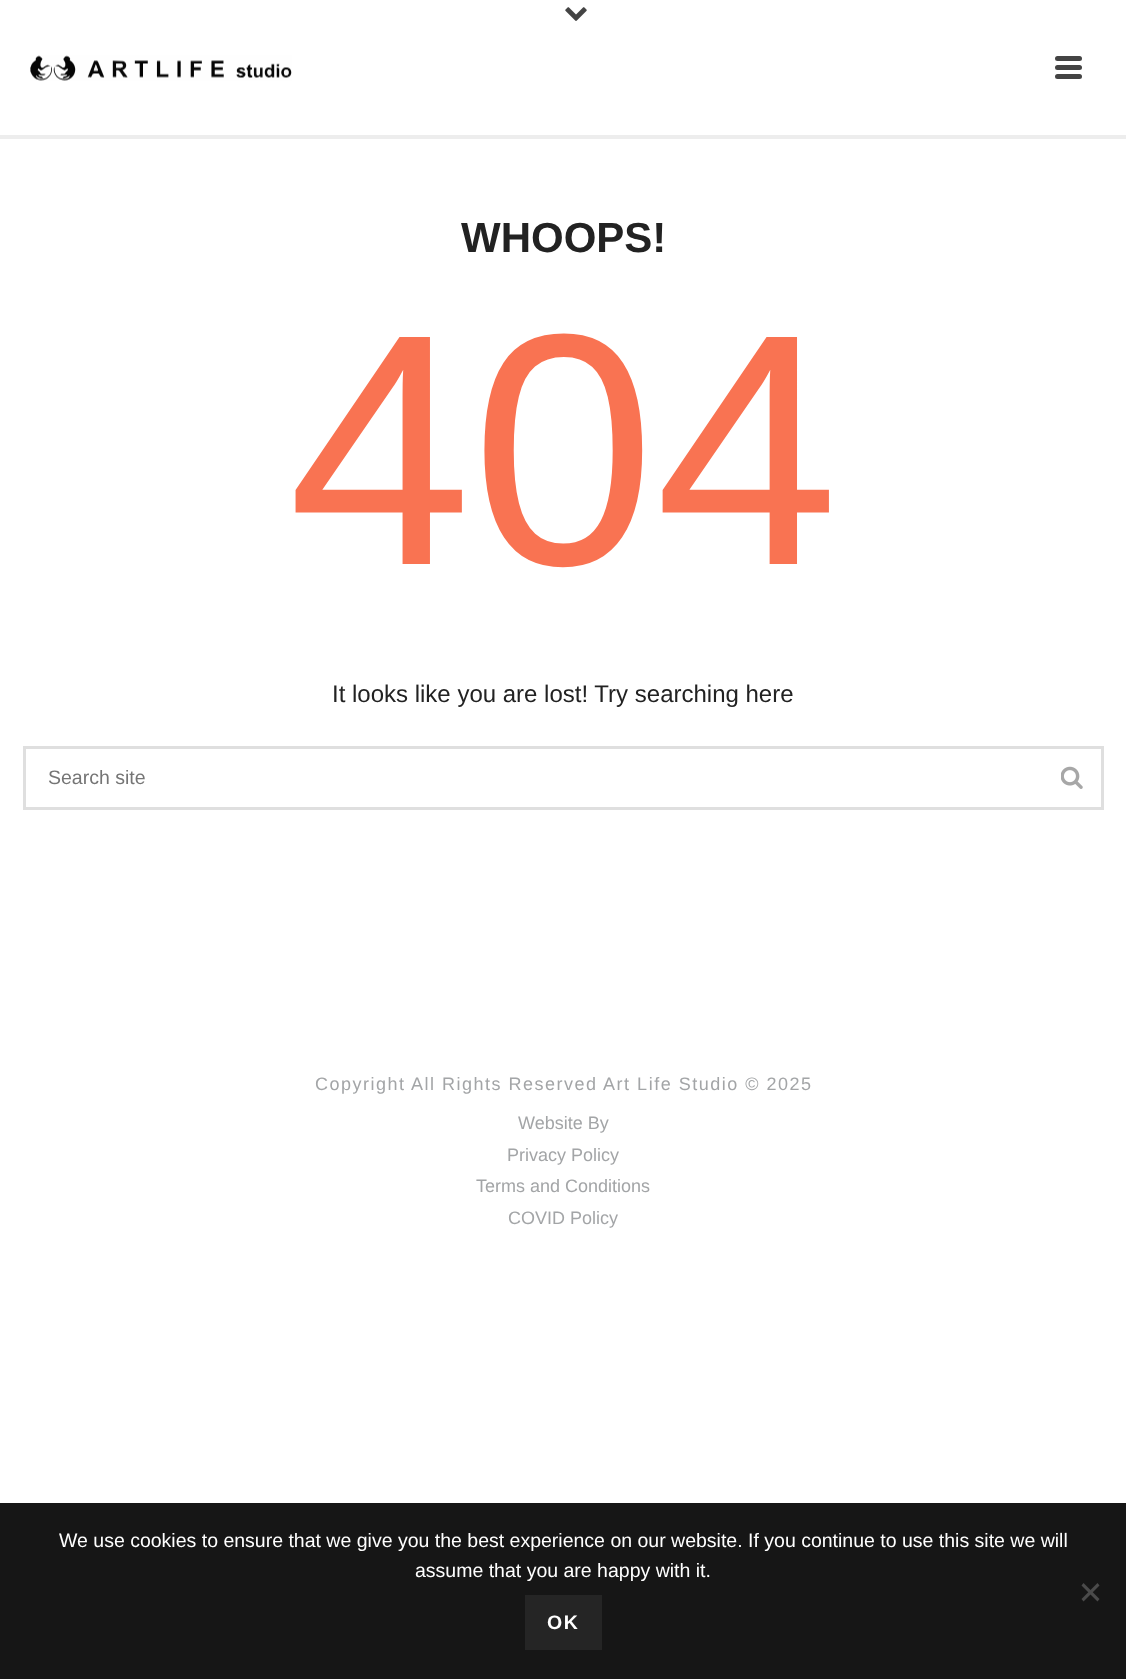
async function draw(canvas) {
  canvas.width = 1126
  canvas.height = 1679
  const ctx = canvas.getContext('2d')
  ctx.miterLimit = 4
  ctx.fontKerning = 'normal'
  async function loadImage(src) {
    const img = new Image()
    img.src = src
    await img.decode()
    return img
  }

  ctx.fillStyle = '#fff'
  ctx.fillRect(0, 0, 1126, 1679)
  ctx.fillStyle = '#ededed'
  ctx.fillRect(0, 135, 1126, 4)
  ctx.drawImage(await loadImage('image0.png'), 565, 7, 22, 14)
  ctx.drawImage(await loadImage('image1.png'), 30, 55, 262, 26)
  ctx.fillStyle = '#444'
  ctx.beginPath()
  ctx.roundRect(1055, 56, 27, 5, 2.5)
  ctx.fill()
  ctx.beginPath()
  ctx.roundRect(1055, 65, 27, 5, 2.5)
  ctx.fill()
  ctx.beginPath()
  ctx.roundRect(1055, 74, 27, 5, 2.5)
  ctx.fill()
  ctx.font = 'bold 42px Arimo'
  ctx.fillStyle = '#222'
  ctx.fillText('WHOOPS!', 461, 252)
  ctx.font = '330px Arimo'
  ctx.fillStyle = '#f97352'
  ctx.fillText('404', 288, 564)
  ctx.font = '24px Arimo'
  ctx.fillStyle = '#222'
  ctx.fillText('It looks like you are lost! Try searching here', 332, 702)
  ctx.strokeStyle = '#dfdfdf'
  ctx.lineWidth = 3
  ctx.strokeRect(24.5, 747.5, 1078, 61)
  ctx.font = '19.5px Arimo'
  ctx.fillStyle = '#757575'
  ctx.fillText('Search site', 48, 784)
  ctx.drawImage(await loadImage('image2.png'), 1061, 766, 22, 23)
  ctx.letterSpacing = '1.5px'
  ctx.font = '18px Arimo'
  ctx.fillStyle = '#a3a5a7'
  ctx.fillText('Copyright All Rights Reserved Art Life Studio © 2025', 315, 1090)
  ctx.letterSpacing = '0px'
  ctx.fillText('Website By', 518, 1129)
  ctx.fillText('Privacy Policy', 507, 1161)
  ctx.fillText('Terms and Conditions', 476, 1192)
  ctx.fillText('COVID Policy', 508, 1224)
  ctx.fillStyle = '#161616'
  ctx.fillRect(0, 1503, 1126, 176)
  ctx.font = '19.5px Liberation Sans'
  ctx.fillStyle = '#fff'
  ctx.fillText('We use cookies to ensure that we give you the best experience on our website. If you continue to use this site we will', 59, 1547)
  ctx.fillText('assume that you are happy with it.', 415, 1577)
  ctx.fillStyle = '#4b4b4b'
  ctx.beginPath()
  ctx.moveTo(1097.5, 1583)
  ctx.lineTo(1099.5, 1585.5)
  ctx.lineTo(1083.5, 1601.5)
  ctx.lineTo(1081.5, 1599)
  ctx.closePath()
  ctx.fill()
  ctx.beginPath()
  ctx.moveTo(1081.5, 1585.5)
  ctx.lineTo(1083.5, 1583)
  ctx.lineTo(1099.5, 1599)
  ctx.lineTo(1097.5, 1601.5)
  ctx.closePath()
  ctx.fill()
  ctx.fillStyle = '#252525'
  ctx.fillRect(525, 1595, 77, 55)
  ctx.letterSpacing = '1.5px'
  ctx.font = 'bold 19.5px Liberation Sans'
  ctx.fillStyle = '#fff'
  ctx.fillText('OK', 547, 1629)
}

draw(document.querySelector('canvas'))
